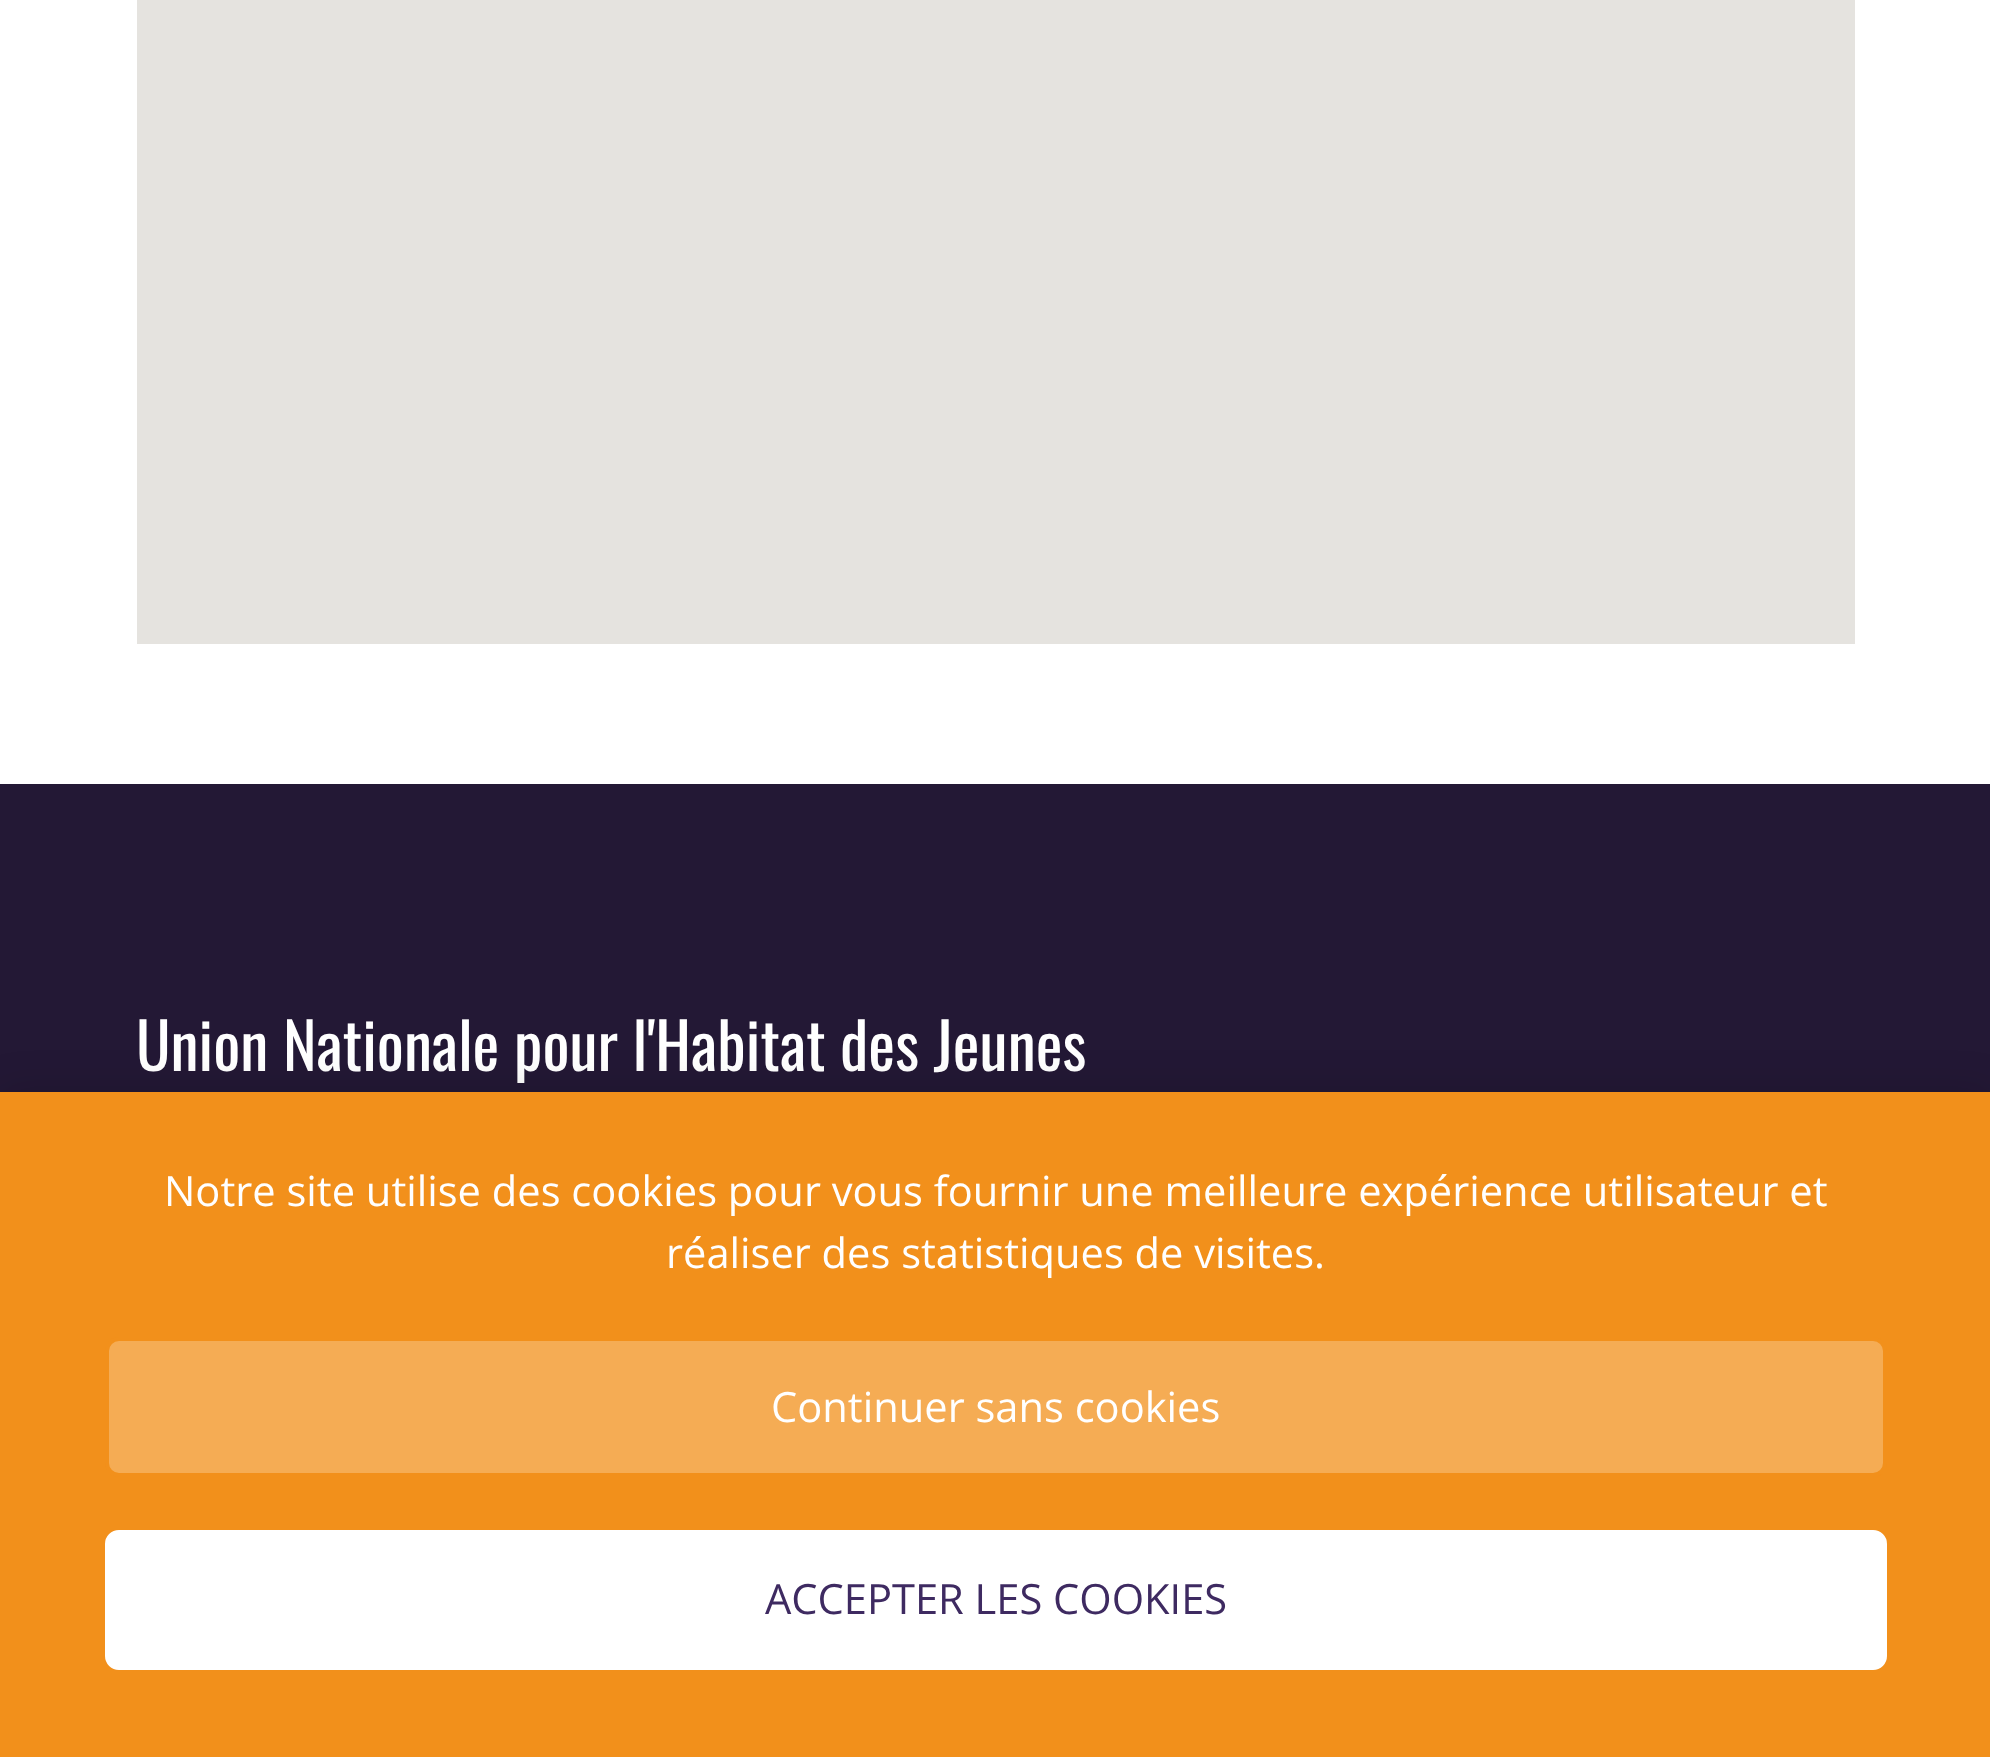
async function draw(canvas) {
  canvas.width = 1990
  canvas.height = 1757
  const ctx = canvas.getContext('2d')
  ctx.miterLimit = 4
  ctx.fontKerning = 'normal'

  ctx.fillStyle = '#fff'
  ctx.fillRect(0, 0, 1990, 1757)
  ctx.fillStyle = '#e5e3df'
  ctx.fillRect(137, 0, 1718, 644)
  ctx.fillStyle = '#231835'
  ctx.fillRect(0, 784, 1990, 308)
  ctx.font = '63.75px Oswald'
  ctx.fillStyle = '#fff'
  ctx.fillText('Union Nationale pour l\'Habitat des Jeunes', 136, 1071)
  ctx.fillStyle = '#00000026'
  ctx.filter = 'blur(21px)'
  ctx.beginPath()
  ctx.rect(0, 1092, 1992, 665)
  ctx.fill()
  ctx.filter = 'none'
  ctx.fillStyle = '#f2901b'
  ctx.fillRect(0, 1092, 1990, 665)
  ctx.font = '41.65px Open Sans'
  ctx.fillStyle = '#fff'
  ctx.fillText('Notre site utilise des cookies pour vous fournir une meilleure expérience utilisateur et', 164, 1206)
  ctx.fillText('réaliser des statistiques de visites.', 666, 1268)
  ctx.fillStyle = '#f5ac54'
  ctx.beginPath()
  ctx.roundRect(107, 1339, 1778, 136, 12)
  ctx.fill()
  ctx.strokeStyle = '#f2901b'
  ctx.lineWidth = 4
  ctx.stroke()
  ctx.fillStyle = '#fff'
  ctx.fillText('Continuer sans cookies', 771, 1422)
  ctx.beginPath()
  ctx.roundRect(107, 1532, 1778, 136, 12)
  ctx.fill()
  ctx.strokeStyle = '#fff'
  ctx.stroke()
  ctx.fillStyle = '#3e2a61'
  ctx.fillText('ACCEPTER LES COOKIES', 765, 1614)
}

draw(document.querySelector('canvas'))
